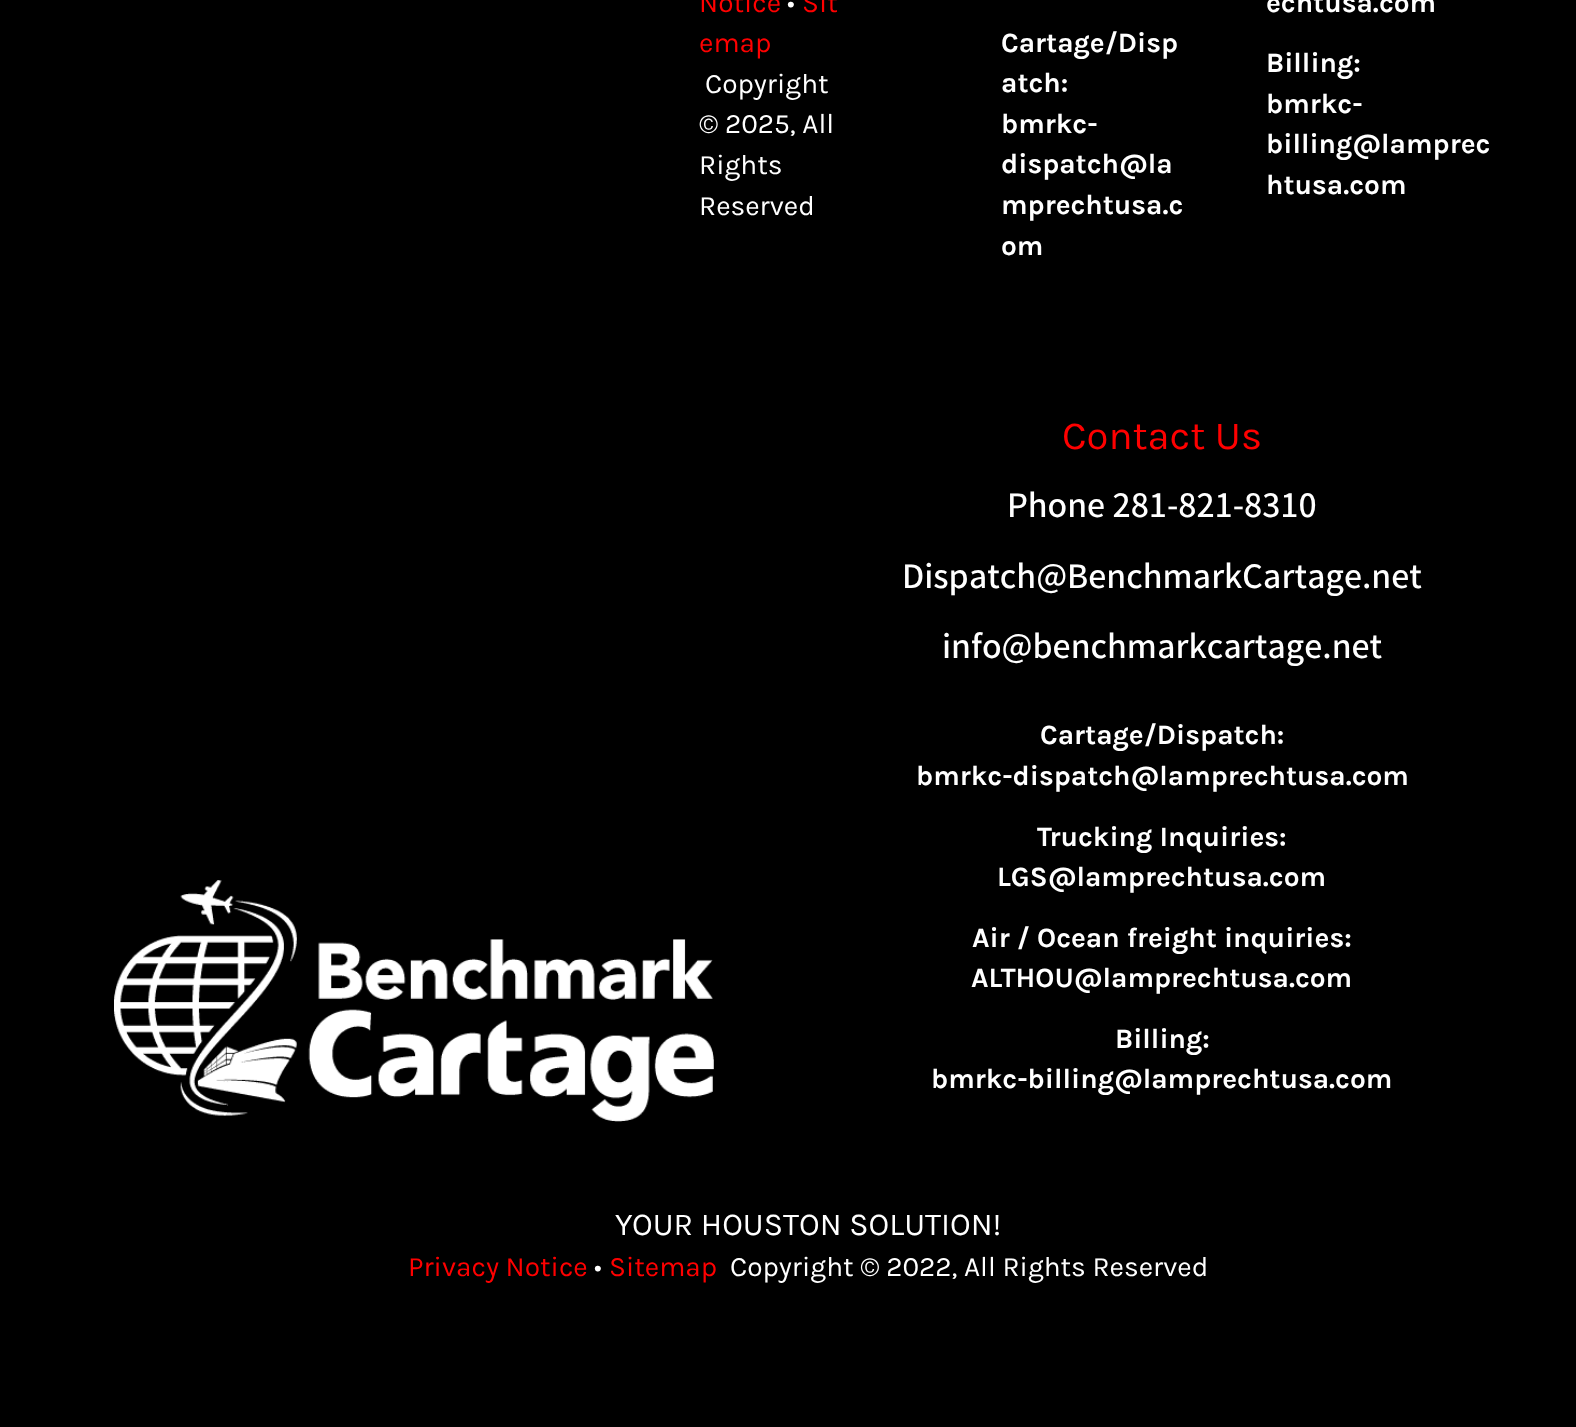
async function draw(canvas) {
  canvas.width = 1576
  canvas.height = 1427
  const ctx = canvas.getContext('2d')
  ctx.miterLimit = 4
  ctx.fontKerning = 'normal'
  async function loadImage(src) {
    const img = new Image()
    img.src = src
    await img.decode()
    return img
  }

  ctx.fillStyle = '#000'
  ctx.fillRect(0, 0, 1576, 1427)
  ctx.font = '28px Karla'
  ctx.fillStyle = '#f00'
  ctx.fillText('Notice', 699, 12)
  ctx.fillStyle = '#fff'
  ctx.fillText('•', 787, 12)
  ctx.fillStyle = '#f00'
  ctx.fillText('Sit', 802, 12)
  ctx.fillText('emap', 699, 52)
  ctx.fillStyle = '#fff'
  ctx.fillText('Copyright', 705, 93)
  ctx.fillText('© 2025, All', 699, 133)
  ctx.fillText('Rights', 699, 174)
  ctx.fillText('Reserved', 699, 215)
  ctx.font = 'bold 28px Karla'
  ctx.fillText('Cartage/Disp', 1001, 52)
  ctx.fillText('atch:', 1001, 92)
  ctx.fillText('bmrkc-', 1001, 133)
  ctx.fillText('dispatch@la', 1001, 173)
  ctx.fillText('mprechtusa.c', 1001, 214)
  ctx.fillText('om', 1001, 255)
  ctx.fillText('echtusa.com', 1266, 12)
  ctx.fillText('Billing:', 1266, 72)
  ctx.fillText('bmrkc-', 1266, 113)
  ctx.fillText('billing@lamprec', 1266, 153)
  ctx.fillText('htusa.com', 1266, 194)
  ctx.drawImage(await loadImage('image0.png'), 114, 880, 600, 242)
  ctx.font = '40px Karla'
  ctx.fillStyle = '#f00'
  ctx.fillText('Contact Us', 1062, 449)
  ctx.font = '600 36px Varta'
  ctx.fillStyle = '#fff'
  ctx.fillText('Phone 281-821-8310', 1007, 517)
  ctx.fillText('Dispatch@BenchmarkCartage.net', 902, 588)
  ctx.fillText('info@benchmarkcartage.net', 942, 658)
  ctx.font = 'bold 28px Karla'
  ctx.fillText('Cartage/Dispatch:', 1040, 744)
  ctx.fillText('bmrkc-dispatch@lamprechtusa.com', 916, 785)
  ctx.fillText('Trucking Inquiries:', 1037, 846)
  ctx.fillText('LGS@lamprechtusa.com', 997, 886)
  ctx.fillText('Air / Ocean freight inquiries:', 972, 947)
  ctx.fillText('ALTHOU@lamprechtusa.com', 971, 987)
  ctx.fillText('Billing:', 1115, 1048)
  ctx.fillText('bmrkc-billing@lamprechtusa.com', 931, 1088)
  ctx.font = '32px Karla'
  ctx.fillText('YOUR HOUSTON SOLUTION!', 615, 1235)
  ctx.font = '28px Karla'
  ctx.fillStyle = '#f00'
  ctx.fillText('Privacy Notice', 408, 1276)
  ctx.fillStyle = '#fff'
  ctx.fillText('•', 594, 1276)
  ctx.fillStyle = '#f00'
  ctx.fillText('Sitemap', 609, 1276)
  ctx.fillStyle = '#fff'
  ctx.fillText('Copyright © 2022, All Rights Reserved', 730, 1276)
}

draw(document.querySelector('canvas'))
